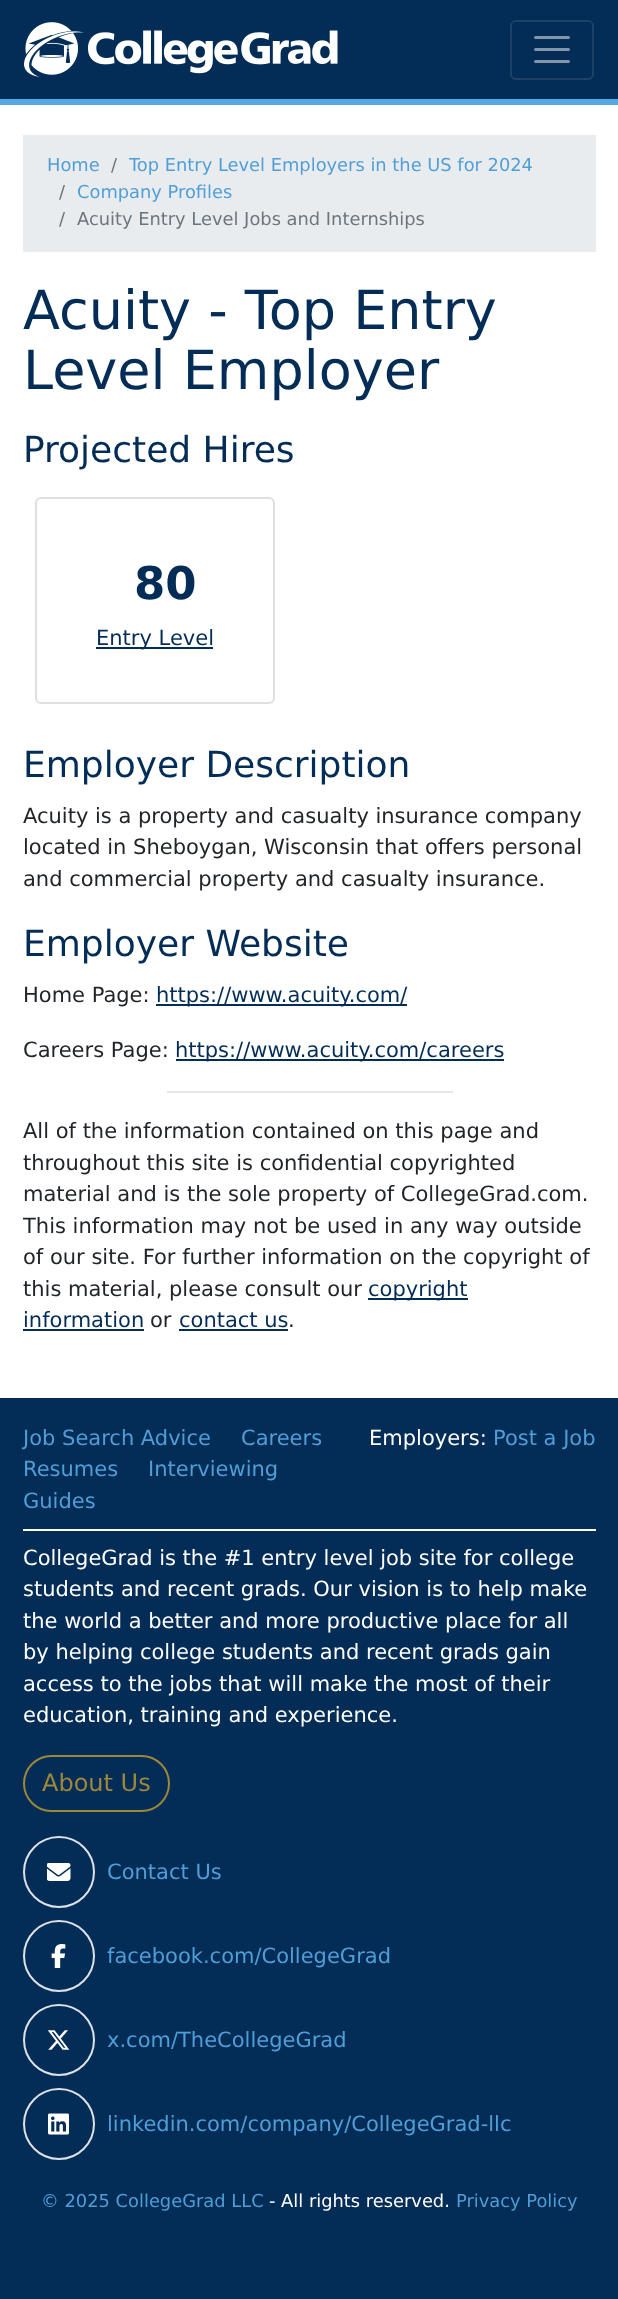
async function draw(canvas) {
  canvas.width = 618
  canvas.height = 2299
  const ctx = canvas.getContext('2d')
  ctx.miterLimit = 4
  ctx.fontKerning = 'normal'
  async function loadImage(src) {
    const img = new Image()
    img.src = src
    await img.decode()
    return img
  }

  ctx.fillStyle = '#fff'
  ctx.fillRect(0, 0, 618, 2299)
  ctx.fillStyle = '#032d56'
  ctx.fillRect(0, 0, 618, 99)
  ctx.fillStyle = '#55a8e5'
  ctx.fillRect(0, 99, 618, 6)
  ctx.drawImage(await loadImage('image0.png'), 24, 22, 314, 55)
  ctx.beginPath()
  ctx.roundRect(511, 21, 82, 58, 5)
  ctx.strokeStyle = '#1c4267'
  ctx.lineWidth = 2
  ctx.stroke()
  ctx.beginPath()
  ctx.moveTo(535.5, 37.5)
  ctx.lineTo(568.5, 37.5)
  ctx.moveTo(535.5, 49.5)
  ctx.lineTo(568.5, 49.5)
  ctx.moveTo(535.5, 61.5)
  ctx.lineTo(568.5, 61.5)
  ctx.strokeStyle = '#8196ab'
  ctx.lineWidth = 3
  ctx.lineCap = 'round'
  ctx.stroke()
  ctx.fillStyle = '#e9ecef'
  ctx.fillRect(23, 135, 573, 117)
  ctx.font = '17.85px DejaVu Sans'
  ctx.fillStyle = '#509ed8'
  ctx.fillText('Home', 47, 171)
  ctx.fillStyle = '#6c757d'
  ctx.fillText('/', 111, 171)
  ctx.fillStyle = '#509ed8'
  ctx.fillText('Top Entry Level Employers in the US for 2024', 129, 171)
  ctx.fillStyle = '#6c757d'
  ctx.fillText('/', 59, 198)
  ctx.fillStyle = '#509ed8'
  ctx.fillText('Company Profiles', 77, 198)
  ctx.fillStyle = '#6c757d'
  ctx.fillText('/', 59, 225)
  ctx.fillText('Acuity Entry Level Jobs and Internships', 77, 225)
  ctx.font = '54px DejaVu Sans'
  ctx.fillStyle = '#032d56'
  ctx.fillText('Acuity - Top Entry', 23, 329)
  ctx.fillText('Level Employer', 23, 389)
  ctx.font = '36px DejaVu Sans'
  ctx.fillText('Projected Hires', 23, 462)
  ctx.beginPath()
  ctx.roundRect(36, 498, 238, 205, 5)
  ctx.strokeStyle = '#dfdfdf'
  ctx.lineWidth = 2
  ctx.stroke()
  ctx.font = 'bold 45px DejaVu Sans'
  ctx.fillText('80', 134, 599)
  ctx.fillRect(96, 647, 117, 2)
  ctx.font = '21px DejaVu Sans'
  ctx.fillText('Entry Level', 96, 645)
  ctx.font = '36px DejaVu Sans'
  ctx.fillText('Employer Description', 23, 777)
  ctx.font = '21px DejaVu Sans'
  ctx.fillStyle = '#212529'
  ctx.fillText('Acuity is a property and casualty insurance company', 23, 823)
  ctx.fillText('located in Sheboygan, Wisconsin that offers personal', 23, 854)
  ctx.fillText('and commercial property and casualty insurance.', 23, 886)
  ctx.font = '36px DejaVu Sans'
  ctx.fillStyle = '#032d56'
  ctx.fillText('Employer Website', 23, 956)
  ctx.font = '21px DejaVu Sans'
  ctx.fillStyle = '#212529'
  ctx.fillText('Home Page:', 23, 1002)
  ctx.fillStyle = '#032d56'
  ctx.fillRect(156, 1004, 251, 2)
  ctx.fillText('https://www.acuity.com/', 156, 1002)
  ctx.fillStyle = '#212529'
  ctx.fillText('Careers Page:', 23, 1057)
  ctx.fillStyle = '#032d56'
  ctx.fillRect(176, 1059, 328, 2)
  ctx.fillText('https://www.acuity.com/careers', 175, 1057)
  ctx.fillStyle = '#e6e6e6'
  ctx.fillRect(167, 1091, 286, 2)
  ctx.fillStyle = '#212529'
  ctx.fillText('All of the information contained on this page and', 23, 1138)
  ctx.fillText('throughout this site is confidential copyrighted', 23, 1170)
  ctx.fillText('material and is the sole property of CollegeGrad.com.', 23, 1201)
  ctx.fillText('This information may not be used in any way outside', 23, 1233)
  ctx.fillText('of our site. For further information on the copyright of', 23, 1264)
  ctx.fillText('this material, please consult our', 23, 1296)
  ctx.fillStyle = '#032d56'
  ctx.fillRect(368, 1298, 100, 2)
  ctx.fillText('copyright', 368, 1296)
  ctx.fillText('information', 23, 1327)
  ctx.fillRect(23, 1329, 121, 2)
  ctx.fillStyle = '#212529'
  ctx.fillText('or', 150, 1327)
  ctx.fillStyle = '#032d56'
  ctx.fillText('contact us', 179, 1327)
  ctx.fillRect(179, 1329, 109, 2)
  ctx.fillStyle = '#212529'
  ctx.fillText('.', 288, 1327)
  ctx.fillStyle = '#032d56'
  ctx.fillRect(0, 1398, 618, 901)
  ctx.fillStyle = '#fff'
  ctx.fillRect(23, 1529, 573, 2)
  ctx.fillStyle = '#509ed8'
  ctx.fillText('Job Search Advice', 23, 1445)
  ctx.fillText('Careers', 241, 1445)
  ctx.fillText('Resumes', 23, 1476)
  ctx.fillText('Interviewing', 148, 1476)
  ctx.fillText('Guides', 23, 1508)
  ctx.fillStyle = '#fff'
  ctx.fillText('Employers:', 369, 1445)
  ctx.fillStyle = '#509ed8'
  ctx.fillText('Post a Job', 493, 1445)
  ctx.fillStyle = '#fff'
  ctx.fillText('CollegeGrad is the #1 entry level job site for college', 23, 1565)
  ctx.fillText('students and recent grads. Our vision is to help make', 23, 1596)
  ctx.fillText('the world a better and more productive place for all', 23, 1628)
  ctx.fillText('by helping college students and recent grads gain', 23, 1659)
  ctx.fillText('access to the jobs that will make the most of their', 23, 1691)
  ctx.fillText('education, training and experience.', 23, 1722)
  ctx.beginPath()
  ctx.roundRect(24, 1756, 145, 55, 27.5)
  ctx.strokeStyle = '#9d8839'
  ctx.stroke()
  ctx.font = '24px DejaVu Sans'
  ctx.fillStyle = '#9d8839'
  ctx.fillText('About Us', 42, 1791)
  ctx.beginPath()
  ctx.arc(59, 1872, 35, 0, 2 * Math.PI)
  ctx.strokeStyle = '#dee2e6'
  ctx.stroke()
  ctx.drawImage(await loadImage('image1.png'), 47, 1863, 24, 18)
  ctx.font = '21px DejaVu Sans'
  ctx.fillStyle = '#509ed8'
  ctx.fillText('Contact Us', 107, 1879)
  ctx.beginPath()
  ctx.arc(59, 1956, 35, 0, 2 * Math.PI)
  ctx.stroke()
  ctx.drawImage(await loadImage('image2.png'), 51, 1944, 15, 24)
  ctx.fillText('facebook.com/CollegeGrad', 107, 1963)
  ctx.beginPath()
  ctx.arc(59, 2040, 35, 0, 2 * Math.PI)
  ctx.stroke()
  ctx.drawImage(await loadImage('image3.png'), 47, 2030, 23, 20)
  ctx.fillText('x.com/TheCollegeGrad', 107, 2047)
  ctx.beginPath()
  ctx.arc(59, 2124, 35, 0, 2 * Math.PI)
  ctx.stroke()
  ctx.drawImage(await loadImage('image4.png'), 48, 2113, 21, 22)
  ctx.fillText('linkedin.com/company/CollegeGrad-llc', 107, 2131)
  ctx.font = '17.85px DejaVu Sans'
  ctx.fillText('© 2025 CollegeGrad LLC', 41, 2207)
  ctx.fillStyle = '#fff'
  ctx.fillText('- All rights reserved.', 269, 2207)
  ctx.fillStyle = '#509ed8'
  ctx.fillText('Privacy Policy', 456, 2207)
}

draw(document.querySelector('canvas'))
